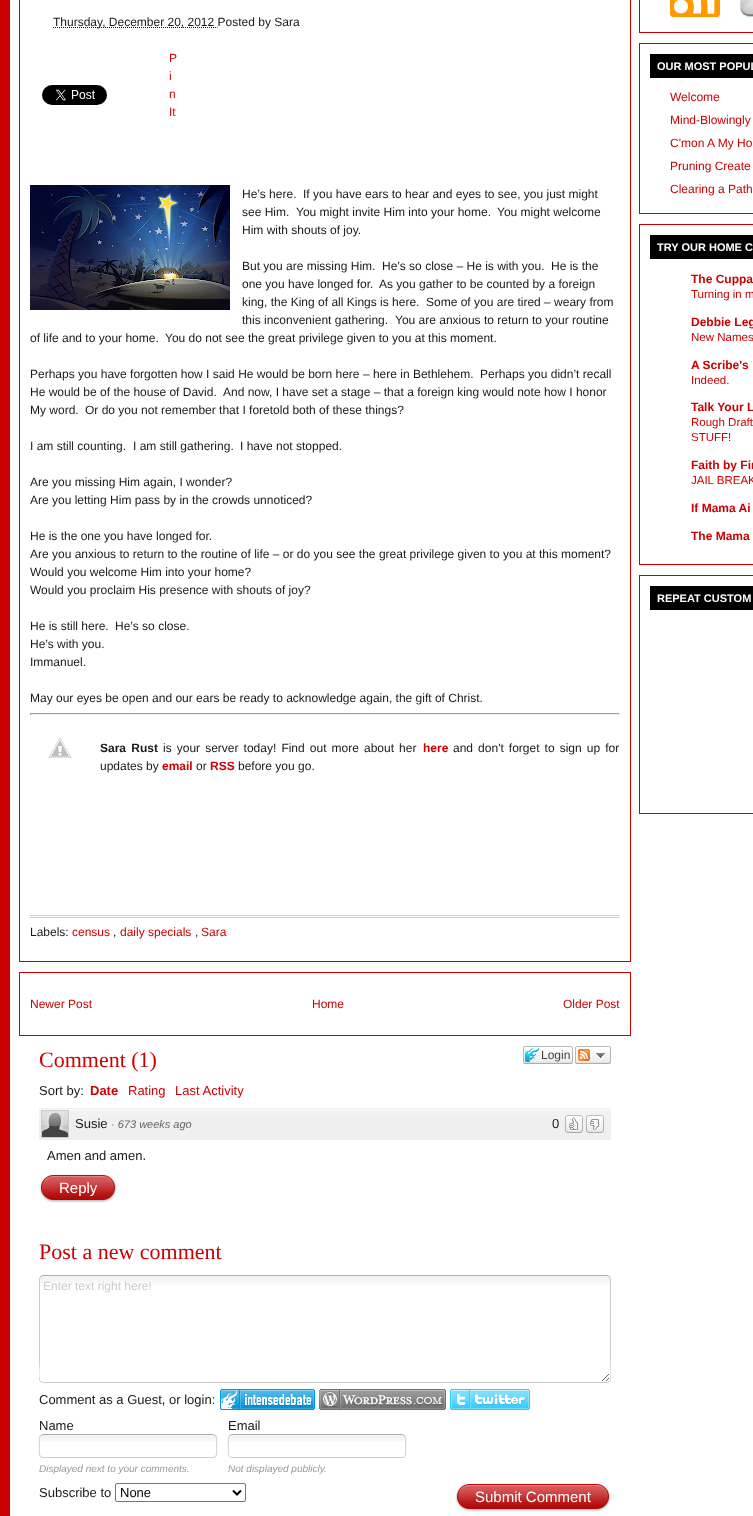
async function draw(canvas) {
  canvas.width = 753
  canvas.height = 1516
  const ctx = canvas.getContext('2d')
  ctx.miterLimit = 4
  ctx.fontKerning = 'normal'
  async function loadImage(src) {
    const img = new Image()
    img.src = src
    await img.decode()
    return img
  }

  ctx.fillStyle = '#fff'
  ctx.fillRect(0, 0, 753, 1516)
  ctx.strokeStyle = '#c00'
  ctx.lineWidth = 10
  ctx.strokeRect(5, -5, 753, 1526)
  ctx.lineWidth = 1
  ctx.strokeRect(19.5, -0.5, 611, 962)
  ctx.beginPath()
  ctx.moveTo(53, 27.5)
  ctx.lineTo(217.5, 27.5)
  ctx.strokeStyle = '#191919'
  ctx.setLineDash([1, 1])
  ctx.stroke()
  ctx.font = '12px Liberation Sans'
  ctx.fillStyle = '#191919'
  ctx.fillText('Thursday, December 20, 2012 Posted by Sara', 53, 26)
  ctx.drawImage(await loadImage('image0.png'), 42, 85, 65, 20)
  ctx.fillStyle = '#c00'
  ctx.fillText('P', 169, 62)
  ctx.fillText('i', 169, 80)
  ctx.fillText('n', 169, 98)
  ctx.fillText('It', 169, 116)
  ctx.drawImage(await loadImage('image1.png'), 30, 185, 200, 125)
  ctx.fillStyle = '#191919'
  ctx.fillText('He’s here.', 242, 198)
  ctx.fillText('If you have ears to hear and eyes to see, you just might', 303, 198)
  ctx.fillText('see Him.', 242, 216)
  ctx.fillText('You might invite Him into your home.', 296, 216)
  ctx.fillText('You might welcome', 497, 216)
  ctx.fillText('Him with shouts of joy.', 242, 234)
  ctx.fillText('But you are missing Him.', 242, 270)
  ctx.fillText('He’s so close – He is with you.', 382, 270)
  ctx.fillText('He is the', 551, 270)
  ctx.fillText('one you have longed for.', 242, 288)
  ctx.fillText('As you gather to be counted by a foreign', 379, 288)
  ctx.fillText('king, the King of all Kings is here.', 242, 306)
  ctx.fillText('Some of you are tired – weary from', 426, 306)
  ctx.fillText('this inconvenient gathering.', 242, 324)
  ctx.fillText('You are anxious to return to your routine', 395, 324)
  ctx.fillText('of life and to your home.', 30, 342)
  ctx.fillText('You do not see the great privilege given to you at this moment.', 165, 342)
  ctx.fillText('Perhaps you have forgotten how I said He would be born here – here in Bethlehem.', 30, 378)
  ctx.fillText('Perhaps you didn’t recall', 480, 378)
  ctx.fillText('He would be of the house of David.', 30, 396)
  ctx.fillText('And now, I have set a stage – that a foreign king would note how I honor', 223, 396)
  ctx.fillText('My word.', 30, 414)
  ctx.fillText('Or do you not remember that I foretold both of these things?', 85, 414)
  ctx.fillText('I am still counting.', 30, 450)
  ctx.fillText('I am still gathering.', 133, 450)
  ctx.fillText('I have not stopped.', 240, 450)
  ctx.fillText('Are you missing Him again, I wonder?', 30, 486)
  ctx.fillText('Are you letting Him pass by in the crowds unnoticed?', 30, 504)
  ctx.fillText('He is the one you have longed for.', 30, 540)
  ctx.fillText('Are you anxious to return to the routine of life – or do you see the great privilege given to you at this moment?', 30, 558)
  ctx.fillText('Would you welcome Him into your home?', 30, 576)
  ctx.fillText('Would you proclaim His presence with shouts of joy?', 30, 594)
  ctx.fillText('He is still here.', 30, 630)
  ctx.fillText('He’s so close.', 115, 630)
  ctx.fillText('He’s with you.', 30, 648)
  ctx.fillText('Immanuel.', 30, 666)
  ctx.fillText('May our eyes be open and our ears be ready to acknowledge again, the gift of Christ.', 30, 702)
  ctx.fillStyle = '#9f9f9f'
  ctx.fillRect(30, 713, 590, 1)
  ctx.fillStyle = '#eee'
  ctx.fillRect(619, 713, 1, 2)
  ctx.fillRect(30, 714, 590, 1)
  ctx.fillStyle = '#9f9f9f'
  ctx.fillRect(30, 713, 1, 2)
  ctx.drawImage(await loadImage('image2.png'), 48, 738, 24, 20)
  ctx.wordSpacing = '2px'
  ctx.font = 'bold 12px Liberation Sans'
  ctx.fillStyle = '#191919'
  ctx.fillText('Sara Rust', 100, 752)
  ctx.wordSpacing = '1.75px'
  ctx.font = '12px Liberation Sans'
  ctx.fillText('is your server today! Find out more about her', 163, 752)
  ctx.wordSpacing = '0px'
  ctx.font = 'bold 12px Liberation Sans'
  ctx.fillStyle = '#c00'
  ctx.fillText('here', 423, 752)
  ctx.wordSpacing = '1.75px'
  ctx.font = '12px Liberation Sans'
  ctx.fillStyle = '#191919'
  ctx.fillText('and don\'t forget to sign up for', 453, 752)
  ctx.wordSpacing = '0px'
  ctx.fillText('updates by', 100, 770)
  ctx.font = 'bold 12px Liberation Sans'
  ctx.fillStyle = '#c00'
  ctx.fillText('email', 162, 770)
  ctx.font = '12px Liberation Sans'
  ctx.fillStyle = '#191919'
  ctx.fillText('or', 196, 770)
  ctx.font = 'bold 12px Liberation Sans'
  ctx.fillStyle = '#c00'
  ctx.fillText('RSS', 210, 770)
  ctx.font = '12px Liberation Sans'
  ctx.fillStyle = '#191919'
  ctx.fillText('before you go.', 238, 770)
  ctx.fillStyle = '#ebeb0b'
  ctx.fillRect(30, 915, 590, 1)
  ctx.fillRect(30, 917, 590, 1)
  ctx.fillStyle = '#191919'
  ctx.fillText('Labels:', 30, 936)
  ctx.fillStyle = '#c00'
  ctx.fillText('census', 72, 936)
  ctx.fillStyle = '#191919'
  ctx.fillText(',', 113, 936)
  ctx.fillStyle = '#c00'
  ctx.fillText('daily specials', 120, 936)
  ctx.fillStyle = '#191919'
  ctx.fillText(',', 195, 936)
  ctx.fillStyle = '#c00'
  ctx.fillText('Sara', 201, 936)
  ctx.strokeStyle = '#c00'
  ctx.setLineDash([])
  ctx.strokeRect(19.5, 972.5, 611, 63)
  ctx.fillText('Newer Post', 30, 1008)
  ctx.fillText('Home', 312, 1008)
  ctx.fillText('Older Post', 563, 1008)
  ctx.font = '22px Liberation Serif'
  ctx.fillText('Comment (1)', 39, 1067)
  ctx.drawImage(await loadImage('image3.png'), 523, 1046, 47, 18)
  ctx.font = '12px Liberation Sans'
  ctx.fillStyle = '#444'
  ctx.fillText('Login', 541, 1059)
  ctx.drawImage(await loadImage('image4.png'), 570, 1046, 3, 18)
  ctx.drawImage(await loadImage('image5.png'), 575, 1046, 36, 18)
  ctx.font = '13px Liberation Sans'
  ctx.fillStyle = '#191919'
  ctx.fillText('Sort by:', 39, 1095)
  ctx.font = 'bold 13px Liberation Sans'
  ctx.fillStyle = '#c00'
  ctx.fillText('Date', 90, 1095)
  ctx.font = '13px Liberation Sans'
  ctx.fillText('Rating', 128, 1095)
  ctx.fillText('Last Activity', 175, 1095)
  ctx.drawImage(await loadImage('image6.png'), 39, 1108, 572, 32)
  ctx.fillStyle = '#ccc'
  ctx.fillRect(41, 1110, 28, 28)
  ctx.drawImage(await loadImage('image7.png'), 42, 1111, 26, 26)
  ctx.fillStyle = '#191919'
  ctx.fillText('Susie', 75, 1128)
  ctx.font = 'italic 11px Liberation Sans'
  ctx.fillStyle = '#666'
  ctx.fillText('· 673 weeks ago', 111, 1128)
  ctx.font = '13px Liberation Sans'
  ctx.fillStyle = '#191919'
  ctx.fillText('0', 552, 1128)
  ctx.drawImage(await loadImage('image8.png'), 565, 1115, 18, 18)
  ctx.drawImage(await loadImage('image9.png'), 586, 1115, 18, 18)
  ctx.fillText('Amen and amen.', 47, 1160)
  ctx.drawImage(await loadImage('image10.png'), 39, 1174, 20, 29)
  ctx.drawImage(await loadImage('image11.png'), 59, 1174, 58, 29)
  ctx.font = '15px Liberation Sans'
  ctx.fillStyle = '#fff'
  ctx.fillText('Reply', 59, 1193)
  ctx.font = '22px Liberation Serif'
  ctx.fillStyle = '#c00'
  ctx.fillText('Post a new comment', 39, 1259)
  ctx.drawImage(await loadImage('image12.png'), 40, 1276, 571, 105)
  ctx.beginPath()
  ctx.moveTo(40.5, 1276.5)
  ctx.lineTo(43, 1275.5)
  ctx.lineTo(607, 1275.5)
  ctx.lineTo(609.5, 1276.5)
  ctx.strokeStyle = '#b0b0b0'
  ctx.stroke()
  ctx.save()
  ctx.beginPath()
  ctx.rect(39, 1275, 572, 112)
  ctx.clip()
  ctx.beginPath()
  ctx.moveTo(609.5, 1276.5)
  ctx.lineTo(610.5, 1279)
  ctx.lineTo(610.5, 1362.5)
  ctx.bezierCurveTo(610.5, 1369, 613.5, 1382.5, 607, 1382.5)
  ctx.lineTo(43, 1382.5)
  ctx.bezierCurveTo(36.5, 1382.5, 39.5, 1369, 39.5, 1362.5)
  ctx.lineTo(39.5, 1279)
  ctx.lineTo(40.5, 1276.5)
  ctx.strokeStyle = '#ccc'
  ctx.stroke()
  ctx.restore()
  ctx.font = '12px Liberation Sans'
  ctx.fillStyle = '#ccc'
  ctx.fillText('Enter text right here!', 43, 1290)
  ctx.font = '13px Liberation Sans'
  ctx.fillStyle = '#191919'
  ctx.fillText('Comment as a Guest, or login:', 39, 1404)
  ctx.drawImage(await loadImage('image13.png'), 220, 1389, 95, 21)
  ctx.drawImage(await loadImage('image14.png'), 319, 1389, 127, 21)
  ctx.drawImage(await loadImage('image15.png'), 450, 1389, 80, 21)
  ctx.fillText('Name', 39, 1430)
  ctx.fillText('Email', 228, 1430)
  ctx.drawImage(await loadImage('image16.png'), 40, 1435, 177, 7)
  ctx.beginPath()
  ctx.moveTo(40.5, 1435.5)
  ctx.lineTo(43, 1434.5)
  ctx.lineTo(213.5, 1434.5)
  ctx.lineTo(215.5, 1435.5)
  ctx.stroke()
  ctx.beginPath()
  ctx.moveTo(215.5, 1435.5)
  ctx.bezierCurveTo(217.5, 1437.5, 216.5, 1446, 216.5, 1448.5)
  ctx.bezierCurveTo(216.5, 1451.5, 217.5, 1457.5, 213, 1457.5)
  ctx.lineTo(43, 1457.5)
  ctx.bezierCurveTo(38.5, 1457.5, 39.5, 1451.5, 39.5, 1448.5)
  ctx.bezierCurveTo(39.5, 1446, 38.5, 1437.5, 40.5, 1435.5)
  ctx.strokeStyle = '#ccc'
  ctx.stroke()
  ctx.font = 'italic 10px Liberation Sans'
  ctx.fillStyle = '#999'
  ctx.fillText('Displayed next to your comments.', 39, 1472)
  ctx.drawImage(await loadImage('image16.png'), 229, 1435, 177, 7)
  ctx.beginPath()
  ctx.moveTo(229.5, 1435.5)
  ctx.lineTo(232, 1434.5)
  ctx.lineTo(402.5, 1434.5)
  ctx.lineTo(404.5, 1435.5)
  ctx.strokeStyle = '#b0b0b0'
  ctx.stroke()
  ctx.beginPath()
  ctx.moveTo(404.5, 1435.5)
  ctx.bezierCurveTo(406.5, 1437.5, 405.5, 1446, 405.5, 1448.5)
  ctx.bezierCurveTo(405.5, 1451.5, 406.5, 1457.5, 402, 1457.5)
  ctx.lineTo(232, 1457.5)
  ctx.bezierCurveTo(227.5, 1457.5, 228.5, 1451.5, 228.5, 1448.5)
  ctx.bezierCurveTo(228.5, 1446, 227.5, 1437.5, 229.5, 1435.5)
  ctx.strokeStyle = '#ccc'
  ctx.stroke()
  ctx.fillText('Not displayed publicly.', 228, 1472)
  ctx.font = '13px Liberation Sans'
  ctx.fillStyle = '#191919'
  ctx.fillText('Subscribe to', 39, 1497)
  ctx.beginPath()
  ctx.roundRect(115.5, 1483.5, 130, 18, 1.5)
  ctx.strokeStyle = '#767676'
  ctx.stroke()
  ctx.beginPath()
  ctx.moveTo(233, 1490.5)
  ctx.lineTo(237, 1494.5)
  ctx.lineTo(241, 1490.5)
  ctx.strokeStyle = '#000'
  ctx.lineWidth = 2
  ctx.stroke()
  ctx.fillStyle = '#000'
  ctx.fillText('None', 120, 1497)
  ctx.drawImage(await loadImage('image10.png'), 455, 1483, 20, 29)
  ctx.drawImage(await loadImage('image17.png'), 475, 1483, 136, 29)
  ctx.font = '15px Liberation Sans'
  ctx.fillStyle = '#fff'
  ctx.fillText('Submit Comment', 475, 1502)
  ctx.strokeStyle = '#c00'
  ctx.lineWidth = 1
  ctx.strokeRect(639.5, -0.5, 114, 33)
  ctx.drawImage(await loadImage('image18.png'), 670, 0, 50, 17)
  ctx.drawImage(await loadImage('image19.png'), 740, 0, 13, 17)
  ctx.strokeRect(639.5, 43.5, 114, 170)
  ctx.fillStyle = '#000'
  ctx.fillRect(650, 54, 103, 24)
  ctx.font = 'bold 11px Liberation Sans'
  ctx.fillStyle = '#fff'
  ctx.fillText('OUR MOST POPUL', 657, 70)
  ctx.font = '12px Liberation Sans'
  ctx.fillStyle = '#c00'
  ctx.fillText('Welcome', 670, 101)
  ctx.fillText('Mind-Blowingly', 670, 124)
  ctx.fillText('C\'mon A My Ho', 670, 147)
  ctx.fillText('Pruning Create', 670, 170)
  ctx.fillText('Clearing a Path', 670, 193)
  ctx.strokeRect(639.5, 224.5, 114, 340)
  ctx.fillStyle = '#000'
  ctx.fillRect(650, 235, 103, 24)
  ctx.font = 'bold 11px Liberation Sans'
  ctx.fillStyle = '#fff'
  ctx.fillText('TRY OUR HOME C', 657, 251)
  ctx.font = 'bold 12px Liberation Sans'
  ctx.fillStyle = '#c00'
  ctx.fillText('The Cuppa', 691, 283)
  ctx.font = '11.5px Liberation Sans'
  ctx.fillText('Turning in m', 691, 298)
  ctx.font = 'bold 12px Liberation Sans'
  ctx.fillText('Debbie Leg', 691, 326)
  ctx.font = '11.5px Liberation Sans'
  ctx.fillText('New Names', 691, 341)
  ctx.font = 'bold 12px Liberation Sans'
  ctx.fillText('A Scribe\'s', 691, 369)
  ctx.font = '11.5px Liberation Sans'
  ctx.fillText('Indeed.', 691, 384)
  ctx.font = 'bold 12px Liberation Sans'
  ctx.fillText('Talk Your L', 691, 411)
  ctx.font = '11.5px Liberation Sans'
  ctx.fillText('Rough Draft', 691, 426)
  ctx.fillText('STUFF!', 691, 441)
  ctx.font = 'bold 12px Liberation Sans'
  ctx.fillText('Faith by Fir', 691, 469)
  ctx.font = '11.5px Liberation Sans'
  ctx.fillText('JAIL BREAK', 691, 484)
  ctx.font = 'bold 12px Liberation Sans'
  ctx.fillText('If Mama Ai', 691, 512)
  ctx.fillText('The Mama', 691, 540)
  ctx.strokeRect(639.5, 575.5, 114, 238)
  ctx.fillStyle = '#000'
  ctx.fillRect(650, 586, 103, 24)
  ctx.font = 'bold 11px Liberation Sans'
  ctx.fillStyle = '#fff'
  ctx.fillText('REPEAT CUSTOM', 657, 602)
}

draw(document.querySelector('canvas'))
